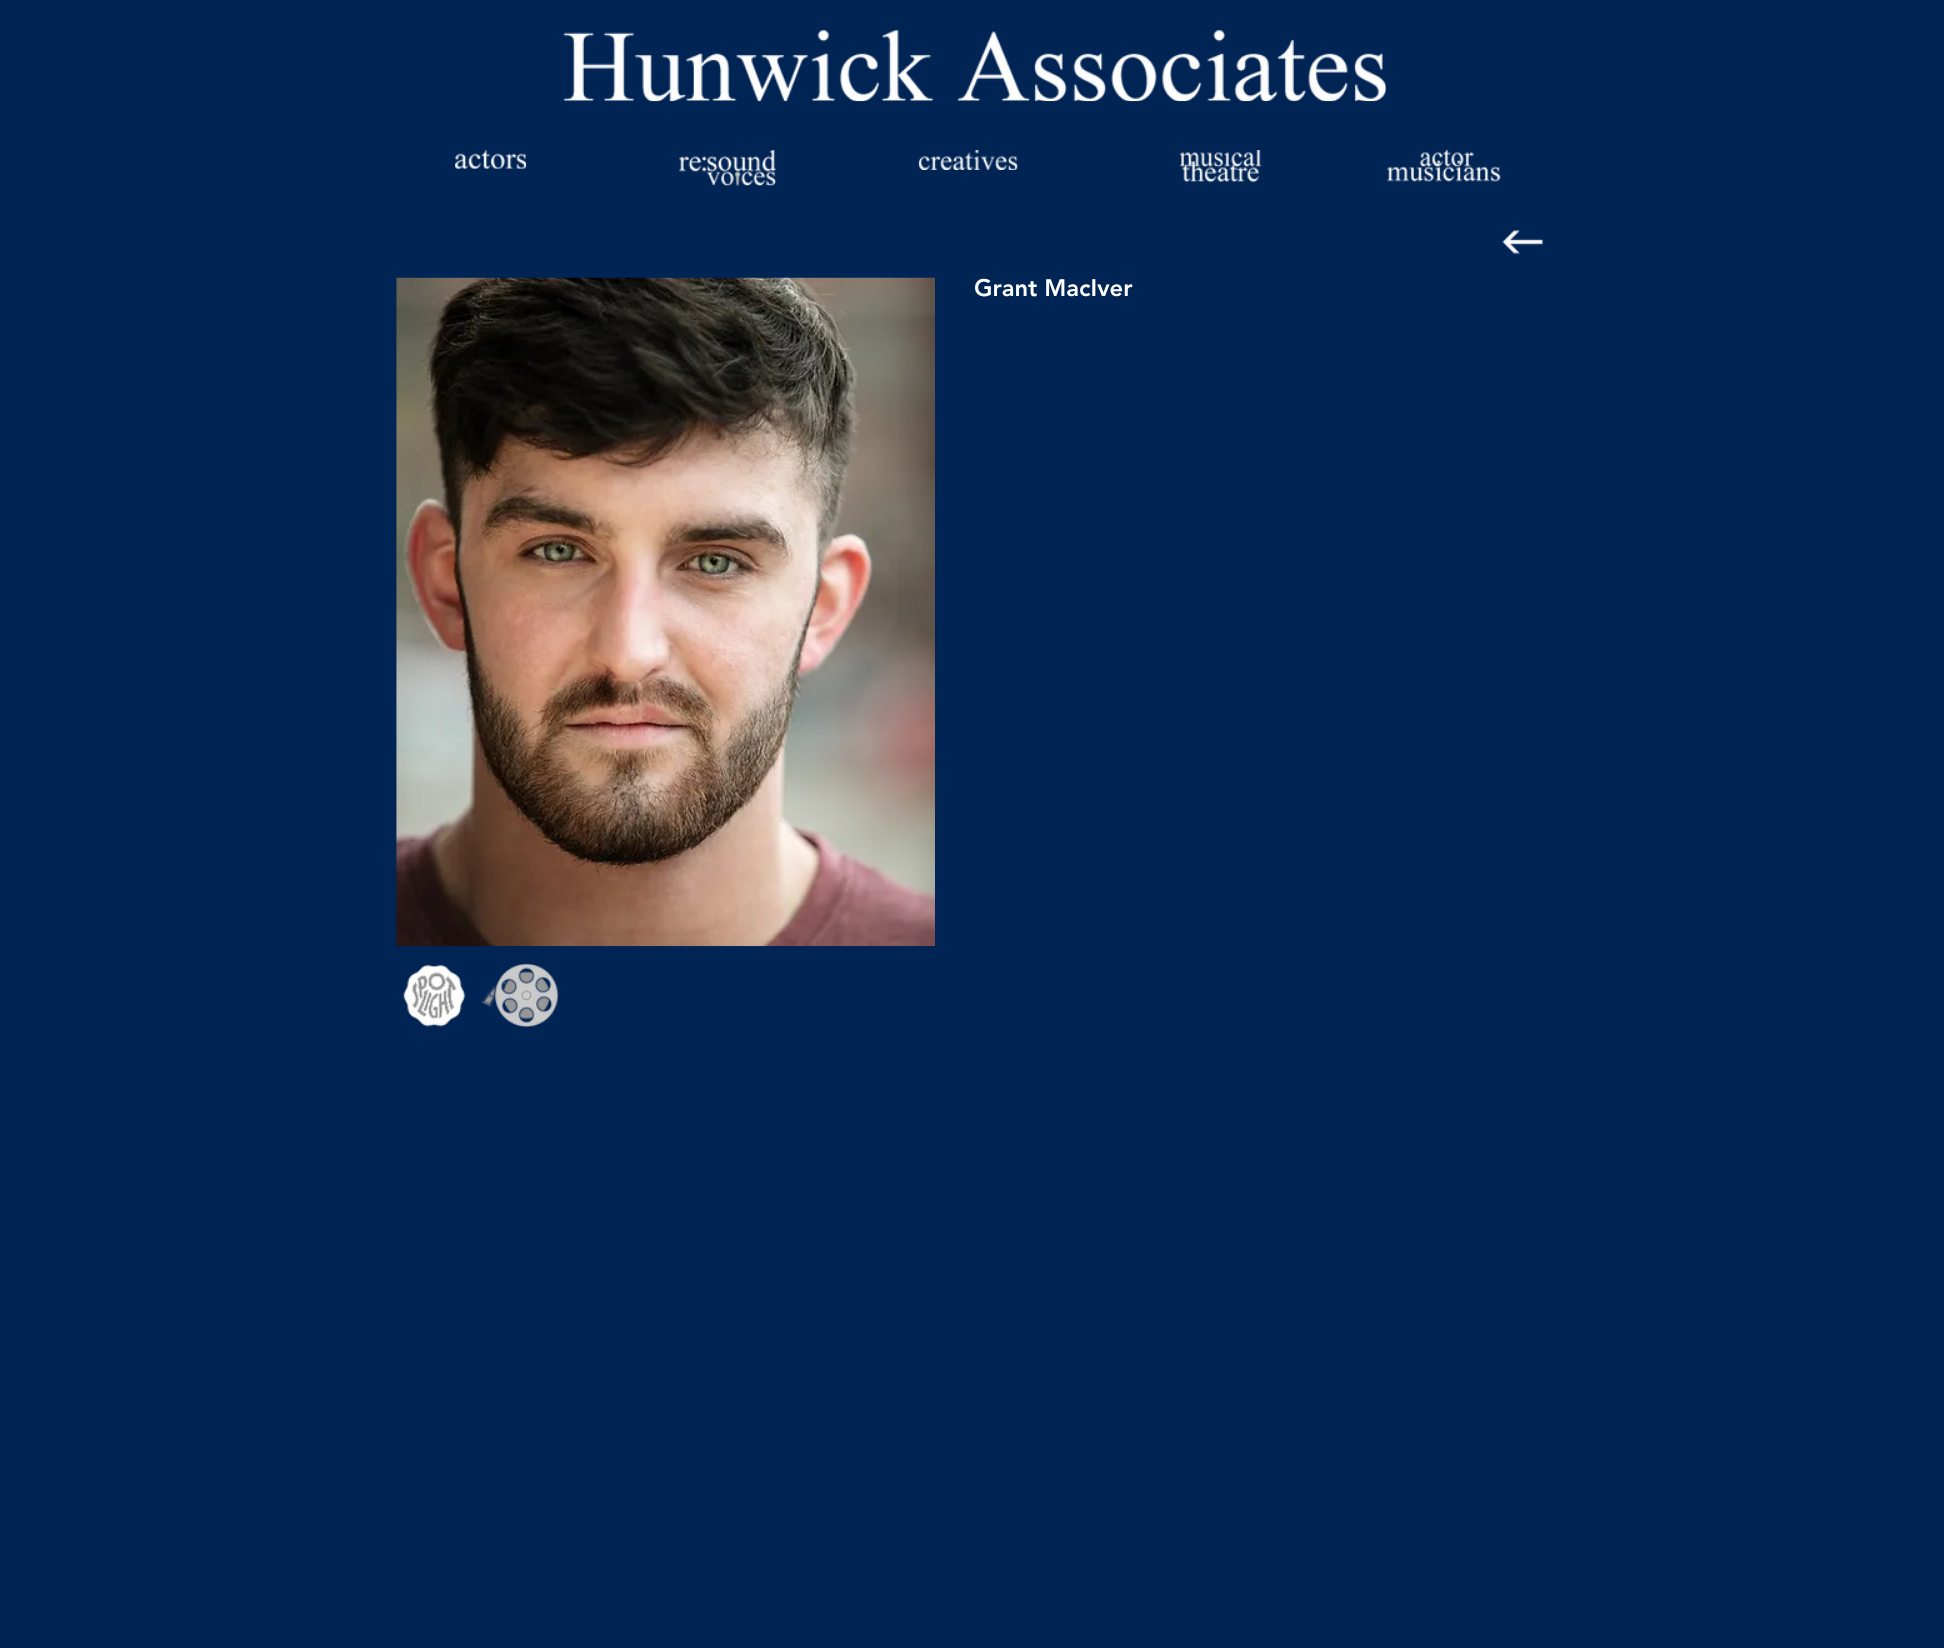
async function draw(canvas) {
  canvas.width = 1944
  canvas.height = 1648
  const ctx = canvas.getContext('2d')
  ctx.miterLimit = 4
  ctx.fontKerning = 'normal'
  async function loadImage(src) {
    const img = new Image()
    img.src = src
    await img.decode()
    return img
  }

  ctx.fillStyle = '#002454'
  ctx.fillRect(0, 0, 1944, 1648)
  ctx.drawImage(await loadImage('image0.png'), 563, 30, 824, 72)
  ctx.drawImage(await loadImage('image1.png'), 455, 150, 72, 19)
  ctx.drawImage(await loadImage('image2.png'), 679, 150, 97, 36)
  ctx.drawImage(await loadImage('image3.png'), 918, 150, 100, 20)
  ctx.drawImage(await loadImage('image4.png'), 1179, 150, 83, 33)
  ctx.drawImage(await loadImage('image5.png'), 1386, 150, 115, 32)
  ctx.drawImage(await loadImage('image6.png'), 1502, 229, 42, 25)
  ctx.drawImage(await loadImage('image7.png'), 396, 277, 539, 670)
  ctx.font = '900 23.75px "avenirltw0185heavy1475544"'
  ctx.fillStyle = '#fff'
  ctx.fillText('Grant MacIver', 974, 296)
  ctx.drawImage(await loadImage('image8.png'), 403, 964, 63, 63)
  ctx.drawImage(await loadImage('image9.png'), 481, 963, 78, 65)
}

draw(document.querySelector('canvas'))
